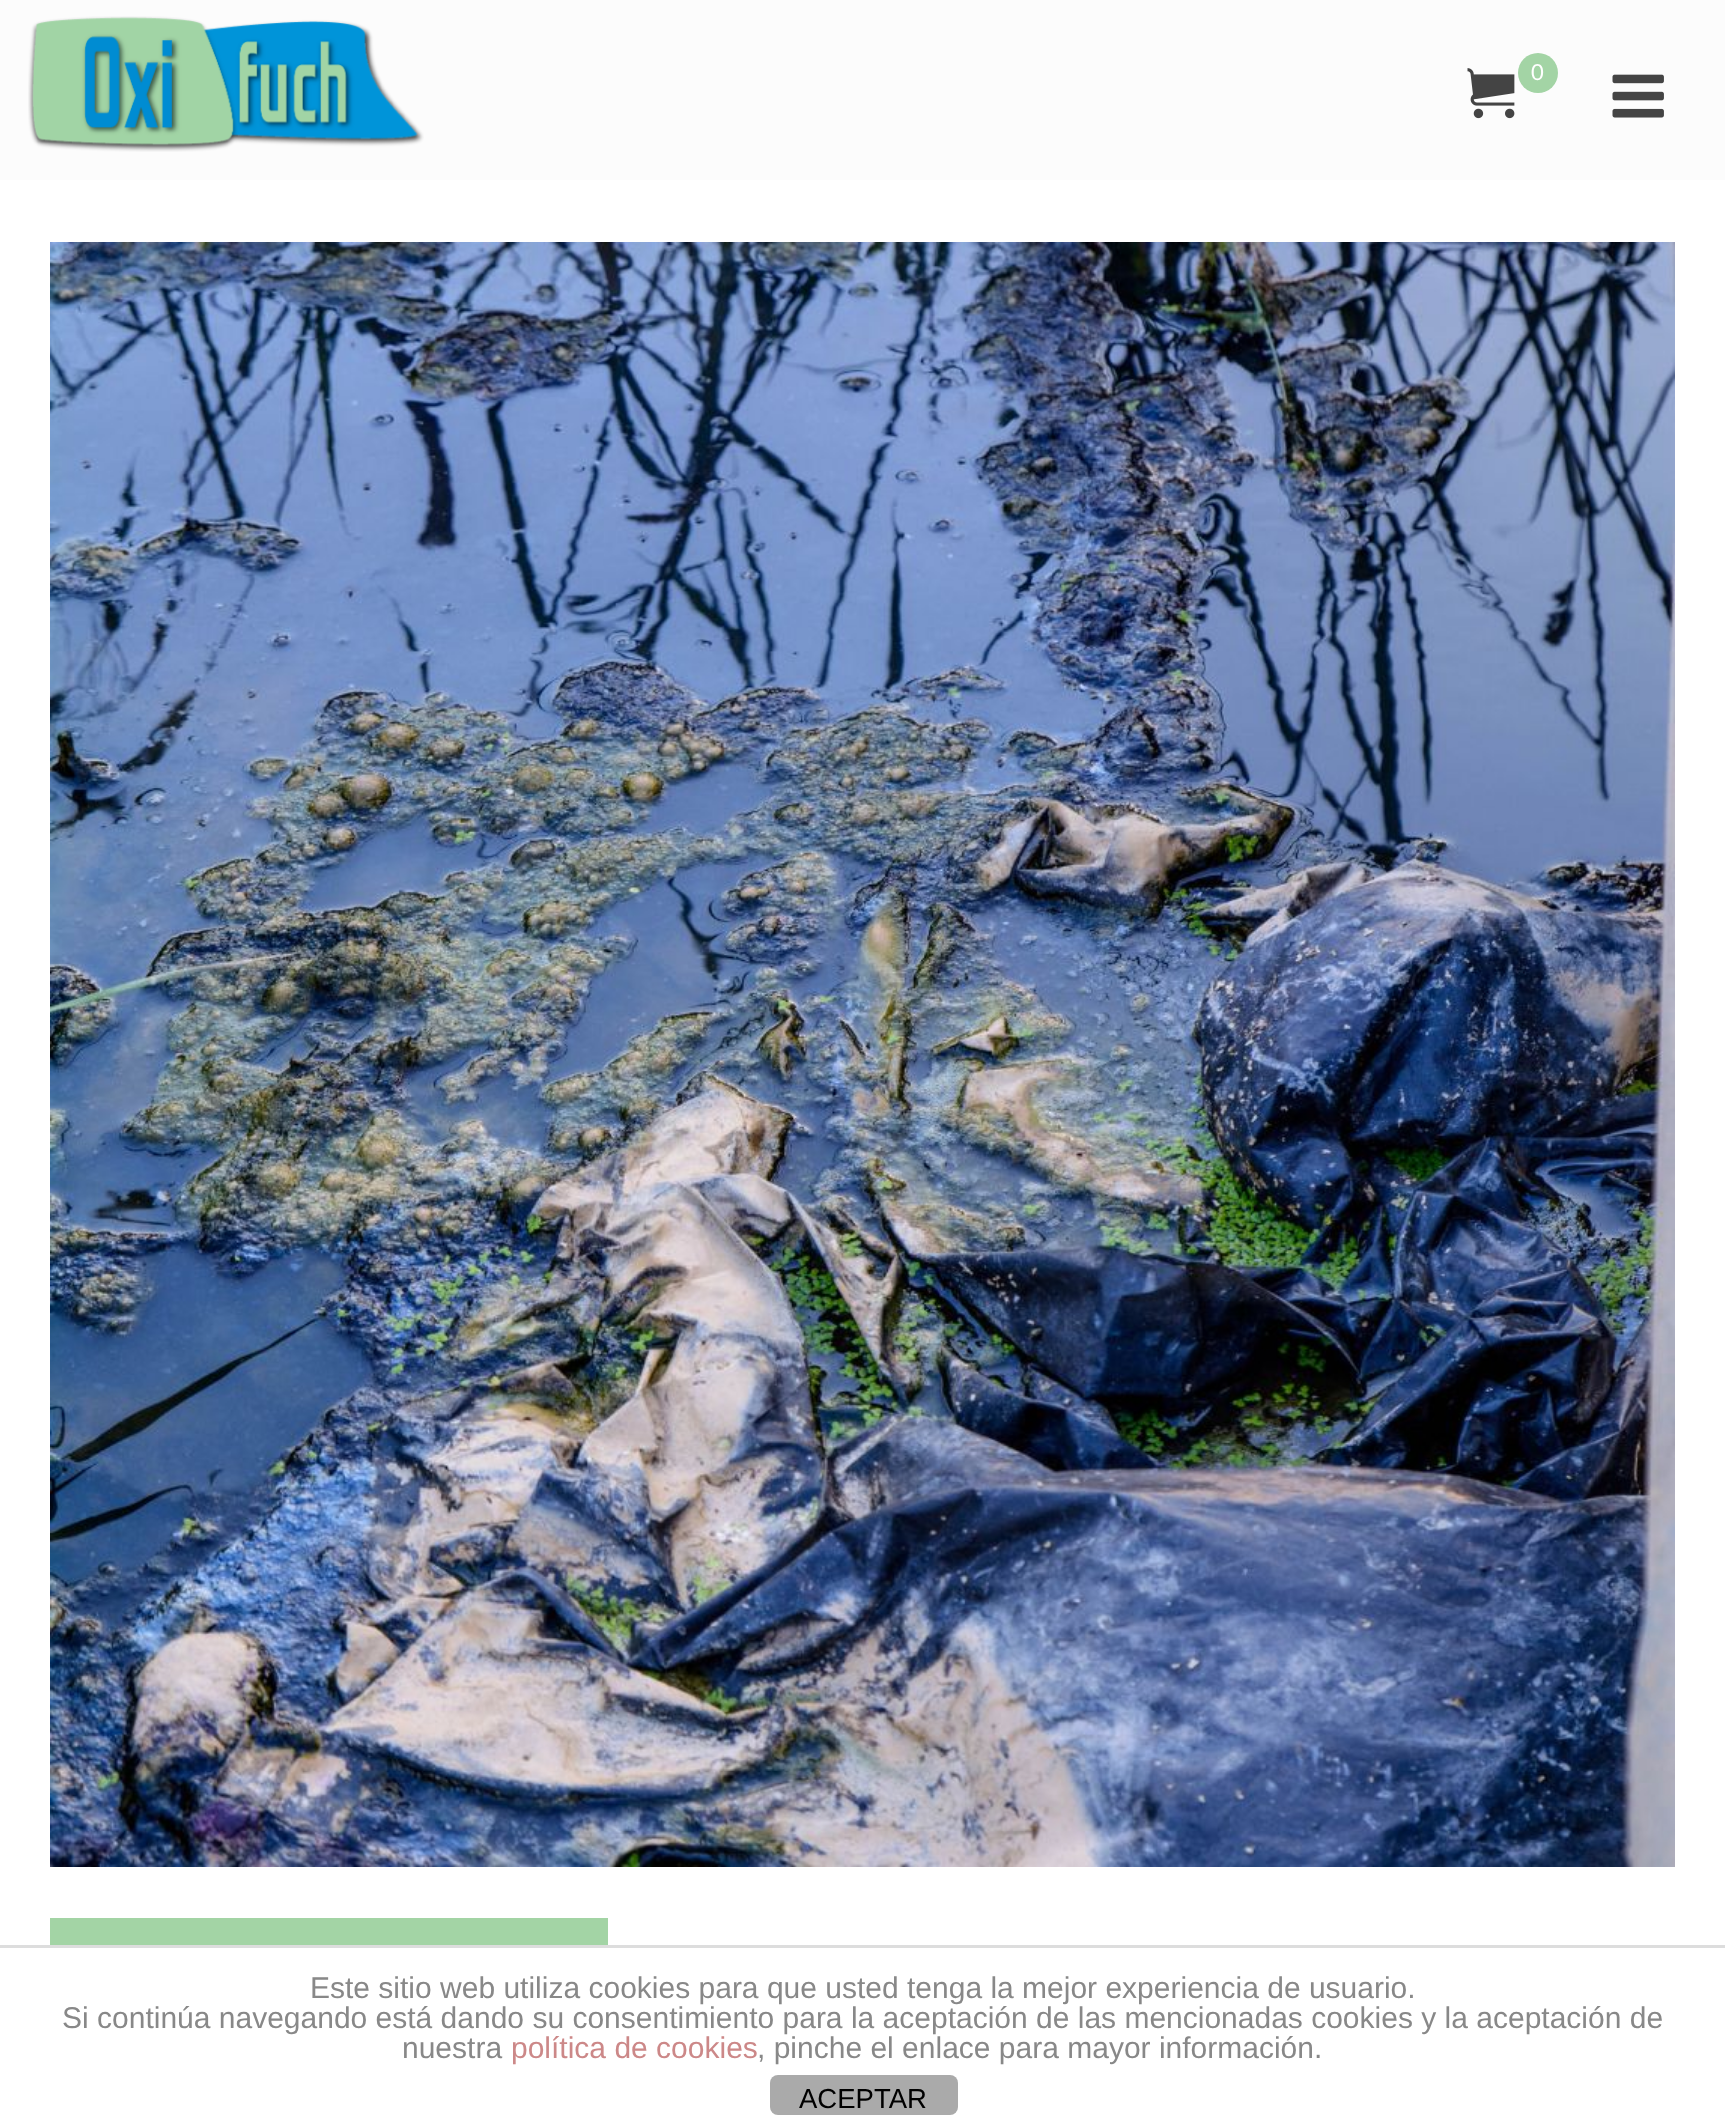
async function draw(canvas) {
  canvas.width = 1725
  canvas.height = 2128
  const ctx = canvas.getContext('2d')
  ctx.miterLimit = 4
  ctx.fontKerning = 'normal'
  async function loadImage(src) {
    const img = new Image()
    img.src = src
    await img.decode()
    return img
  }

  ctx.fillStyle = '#fff'
  ctx.fillRect(0, 0, 1725, 2128)
  ctx.fillStyle = '#fcfcfc'
  ctx.fillRect(0, 0, 1725, 180)
  ctx.drawImage(await loadImage('image0.png'), 28, 16, 396, 136)
  ctx.drawImage(await loadImage('image1.png'), 1467, 68, 48, 51)
  ctx.fillStyle = '#a3d4a5'
  ctx.beginPath()
  ctx.arc(1538, 73, 20, 0, 2 * Math.PI)
  ctx.fill()
  ctx.font = '22px Lato'
  ctx.fillStyle = '#fff'
  ctx.fillText('0', 1531, 80)
  ctx.drawImage(await loadImage('image2.png'), 1612, 74, 52, 44)
  ctx.drawImage(await loadImage('image3.png'), 50, 242, 1625, 1625)
  ctx.fillStyle = '#a3d4a5'
  ctx.fillRect(50, 1918, 558, 27)
  ctx.fillStyle = '#ddd'
  ctx.fillRect(0, 1945, 1725, 3)
  ctx.font = '30px Liberation Sans'
  ctx.fillStyle = '#888'
  ctx.fillText('Este sitio web utiliza cookies para que usted tenga la mejor experiencia de usuario.', 310, 1998)
  ctx.fillText('Si continúa navegando está dando su consentimiento para la aceptación de las mencionadas cookies y la aceptación de', 62, 2028)
  ctx.fillText('nuestra', 402, 2058)
  ctx.fillStyle = '#c88'
  ctx.fillText('política de cookies', 511, 2058)
  ctx.fillStyle = '#888'
  ctx.fillText(', pinche el enlace para mayor información.', 757, 2058)
  ctx.fillStyle = '#aaa'
  ctx.beginPath()
  ctx.roundRect(770, 2075, 188, 40, 8)
  ctx.fill()
  ctx.font = '27.5px Liberation Sans'
  ctx.fillStyle = '#000'
  ctx.fillText('ACEPTAR', 799, 2108)
}

draw(document.querySelector('canvas'))
